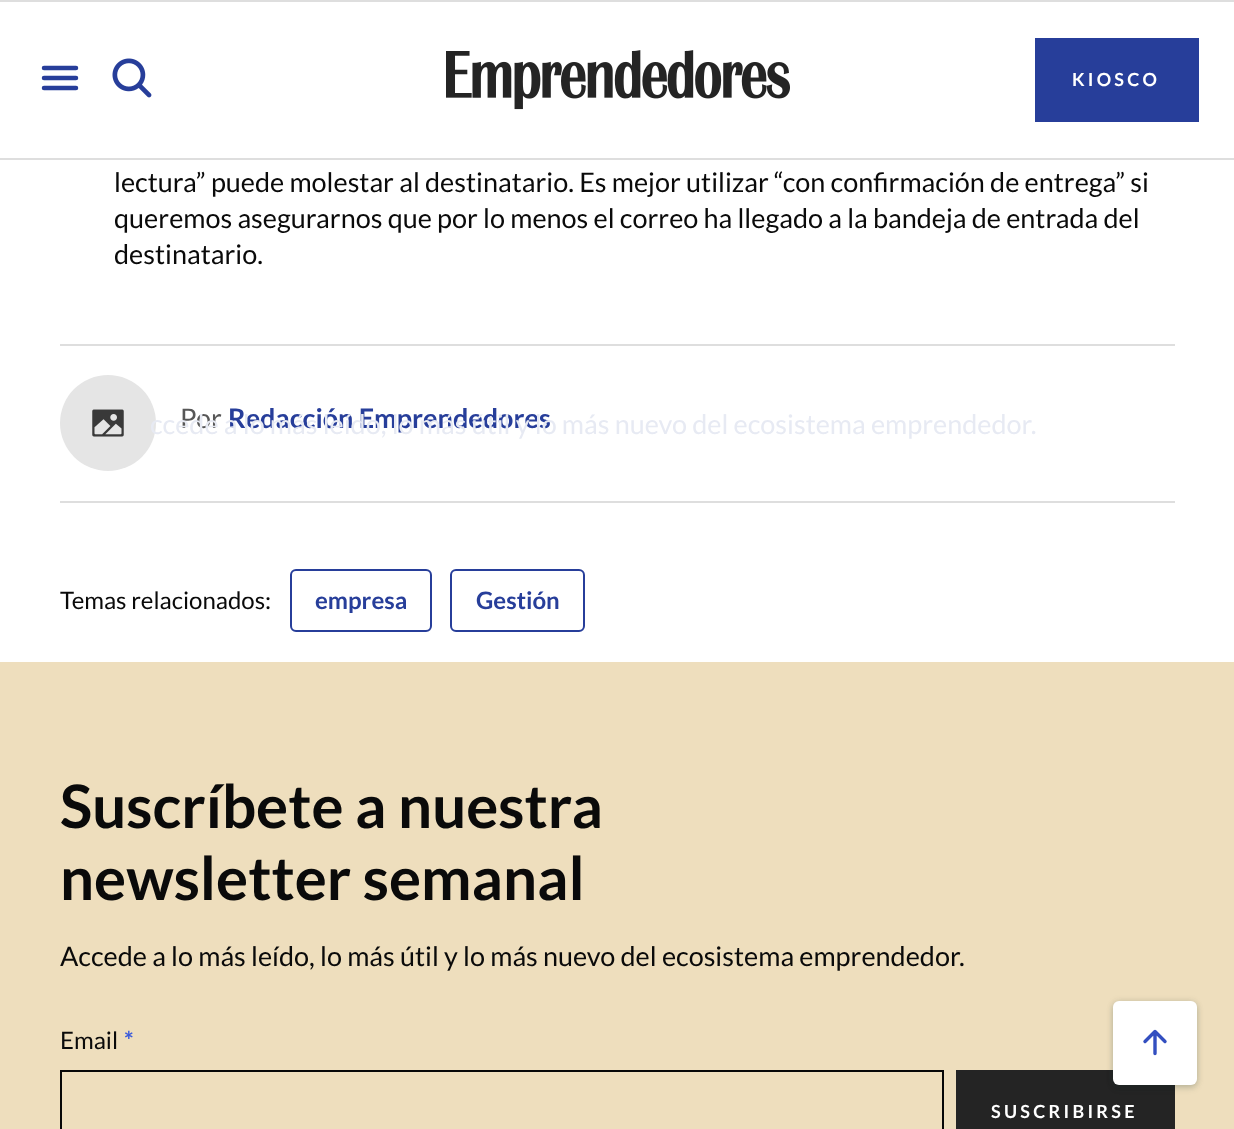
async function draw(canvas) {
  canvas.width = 1234
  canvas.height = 1129
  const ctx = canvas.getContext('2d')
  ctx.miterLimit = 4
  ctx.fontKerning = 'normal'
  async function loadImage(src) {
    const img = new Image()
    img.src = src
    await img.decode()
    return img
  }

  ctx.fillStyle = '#fff'
  ctx.fillRect(0, 0, 1234, 1129)
  ctx.fillStyle = '#dedede'
  ctx.fillRect(0, 0, 1234, 2)
  ctx.fillRect(0, 158, 1234, 2)
  ctx.beginPath()
  ctx.moveTo(44, 68)
  ctx.lineTo(76, 68)
  ctx.moveTo(44, 78)
  ctx.lineTo(76, 78)
  ctx.moveTo(44, 88)
  ctx.lineTo(76, 88)
  ctx.strokeStyle = '#273e9a'
  ctx.lineWidth = 4.5
  ctx.lineCap = 'round'
  ctx.stroke()
  ctx.drawImage(await loadImage('image0.png'), 112, 58, 40, 40)
  ctx.drawImage(await loadImage('image1.png'), 446, 50, 344, 60)
  ctx.fillStyle = '#273e9a'
  ctx.fillRect(1035, 38, 164, 84)
  ctx.letterSpacing = '3.25px'
  ctx.font = 'bold 18px Lato'
  ctx.fillStyle = '#fff'
  ctx.fillText('KIOSCO', 1072, 86)
  ctx.letterSpacing = '0px'
  ctx.font = '27px Lato'
  ctx.fillStyle = '#0a0a0a'
  ctx.fillText('lectura” puede molestar al destinatario. Es mejor utilizar “con confirmación de entrega” si', 114, 192)
  ctx.fillText('queremos asegurarnos que por lo menos el correo ha llegado a la bandeja de entrada del', 114, 228)
  ctx.fillText('destinatario.', 114, 264)
  ctx.fillStyle = '#dedede'
  ctx.fillRect(60, 344, 1115, 2)
  ctx.fillRect(60, 501, 1115, 2)
  ctx.fillStyle = '#e5e5e5'
  ctx.beginPath()
  ctx.arc(108, 423, 48, 0, 2 * Math.PI)
  ctx.fill()
  ctx.drawImage(await loadImage('image2.png'), 92, 409, 32, 28)
  ctx.fillStyle = '#575757'
  ctx.fillText('Por', 180, 428)
  ctx.font = 'bold 27px Lato'
  ctx.fillStyle = '#273e9a'
  ctx.fillText('Redacción Emprendedores', 228, 428)
  ctx.font = '24px Lato'
  ctx.fillStyle = '#0a0a0a'
  ctx.fillText('Temas relacionados:', 60, 609)
  ctx.beginPath()
  ctx.roundRect(291, 570, 140, 61, 5)
  ctx.lineWidth = 2
  ctx.stroke()
  ctx.font = 'bold 24px Lato'
  ctx.fillStyle = '#273e9a'
  ctx.fillText('empresa', 315, 609)
  ctx.beginPath()
  ctx.roundRect(451, 570, 133, 61, 5)
  ctx.stroke()
  ctx.fillText('Gestión', 476, 609)
  ctx.fillStyle = '#eedebd'
  ctx.fillRect(0, 662, 1234, 467)
  ctx.font = 'bold 60px Lato'
  ctx.fillStyle = '#0a0a0a'
  ctx.fillText('Suscríbete a nuestra', 60, 828)
  ctx.fillText('newsletter semanal', 60, 900)
  ctx.font = '27px Lato'
  ctx.fillText('Accede a lo más leído, lo más útil y lo más nuevo del ecosistema emprendedor.', 60, 966)
  ctx.font = '24px Lato'
  ctx.fillText('Email', 60, 1049)
  ctx.font = 'bold 24px Lato'
  ctx.fillStyle = '#3b5bdb'
  ctx.fillText('*', 124, 1049)
  ctx.strokeStyle = '#070707'
  ctx.strokeRect(61, 1071, 882, 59)
  ctx.fillStyle = '#242424'
  ctx.fillRect(956, 1070, 219, 59)
  ctx.letterSpacing = '3.25px'
  ctx.font = 'bold 18px Lato'
  ctx.fillStyle = '#fff'
  ctx.fillText('SUSCRIBIRSE', 991, 1118)
  ctx.letterSpacing = '0px'
  ctx.font = '27px Lato'
  ctx.fillStyle = '#e7eaf3'
  ctx.fillText('ccede a lo más leído, lo más útil y lo más nuevo del ecosistema emprendedor.', 150, 434)
  ctx.fillStyle = '#04252229'
  ctx.filter = 'blur(3px)'
  ctx.beginPath()
  ctx.roundRect(1113, 1004, 84, 84, 6)
  ctx.fill()
  ctx.filter = 'none'
  ctx.fillStyle = '#0425221f'
  ctx.filter = 'blur(3px)'
  ctx.beginPath()
  ctx.roundRect(1113, 1001, 84, 84, 6)
  ctx.fill()
  ctx.filter = 'none'
  ctx.fillStyle = '#fff'
  ctx.beginPath()
  ctx.roundRect(1113, 1001, 84, 84, 6)
  ctx.fill()
  ctx.beginPath()
  ctx.moveTo(1145, 1041.5)
  ctx.lineTo(1155, 1031.5)
  ctx.lineTo(1165, 1041.5)
  ctx.moveTo(1155, 1033)
  ctx.lineTo(1155, 1053.5)
  ctx.strokeStyle = '#334fc0'
  ctx.lineWidth = 3.4
  ctx.lineJoin = 'round'
  ctx.stroke()
}

draw(document.querySelector('canvas'))
